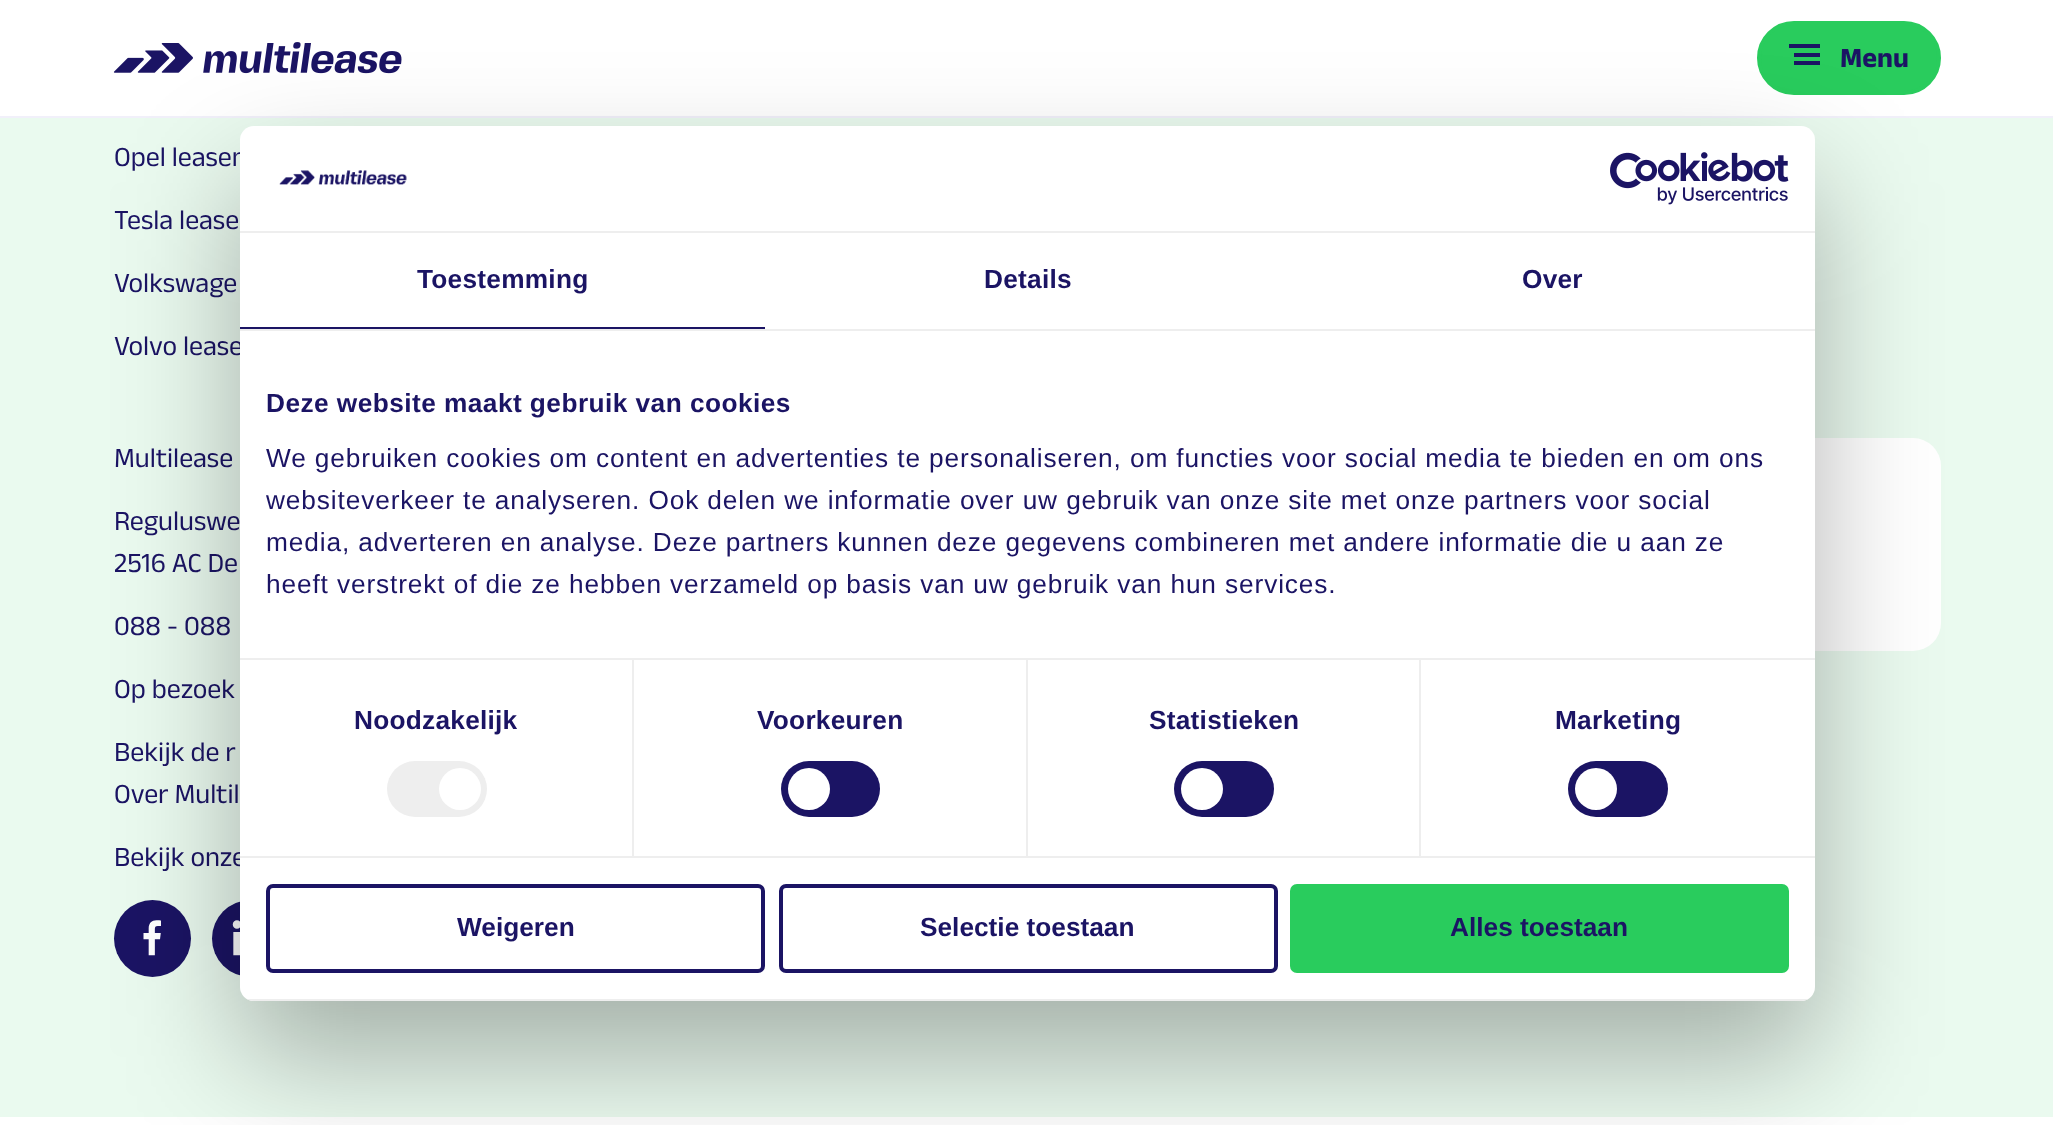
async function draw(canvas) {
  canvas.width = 2053
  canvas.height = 1125
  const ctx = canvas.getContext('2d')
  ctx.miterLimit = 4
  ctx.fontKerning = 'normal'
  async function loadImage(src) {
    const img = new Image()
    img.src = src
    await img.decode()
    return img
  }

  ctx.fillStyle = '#fff'
  ctx.fillRect(0, 0, 2053, 1125)
  ctx.fillStyle = '#f1f0fa'
  ctx.fillRect(0, 116, 2053, 2)
  ctx.drawImage(await loadImage('image0.png'), 113, 42, 289, 32)
  ctx.fillStyle = '#29cc5d'
  ctx.beginPath()
  ctx.roundRect(1759, 23, 180, 70, 35)
  ctx.fill()
  ctx.strokeStyle = '#29cc5d'
  ctx.lineWidth = 4
  ctx.stroke()
  ctx.fillStyle = '#1b1464'
  ctx.fillRect(1789, 44, 31, 4)
  ctx.fillRect(1794, 53, 26, 4)
  ctx.fillRect(1794, 61, 26, 4)
  ctx.font = '500 28px "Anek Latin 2"'
  ctx.fillText('Menu', 1840, 67)
  ctx.fillStyle = '#eafaef'
  ctx.fillRect(0, 118, 2053, 999)
  ctx.font = '500 28px Anek Latin'
  ctx.fillStyle = '#1b1464'
  ctx.fillText('Opel leasen', 114, 166)
  ctx.fillText('Tesla lease', 114, 229)
  ctx.fillText('Volkswage', 114, 292)
  ctx.fillText('Volvo lease', 114, 355)
  ctx.fillText('Multilease', 114, 467)
  ctx.fillText('Reguluswe', 114, 530)
  ctx.fillText('2516 AC De', 114, 572)
  ctx.fillText('088 - 088', 114, 635)
  ctx.fillText('Op bezoek', 114, 698)
  ctx.fillText('Bekijk de r', 114, 761)
  ctx.fillText('Over Multil', 114, 803)
  ctx.fillText('Bekijk onze', 114, 866)
  ctx.beginPath()
  ctx.arc(152.5, 938.5, 38.5, 0, 2 * Math.PI)
  ctx.fill()
  ctx.drawImage(await loadImage('image1.png'), 143, 920, 18, 36)
  ctx.beginPath()
  ctx.arc(250.5, 938.5, 38.5, 0, 2 * Math.PI)
  ctx.fill()
  ctx.drawImage(await loadImage('image2.png'), 232, 920, 8, 36)
  ctx.fillStyle = '#fff'
  ctx.beginPath()
  ctx.roundRect(723, 438, 1218, 213, 28)
  ctx.fill()
  ctx.fillStyle = '#0000004d'
  ctx.filter = 'blur(59.5px)'
  ctx.beginPath()
  ctx.roundRect(240, 182, 1575, 875, 14)
  ctx.fill()
  ctx.filter = 'none'
  ctx.fillStyle = '#fff'
  ctx.beginPath()
  ctx.roundRect(240, 126, 1575, 875, 14)
  ctx.fill()
  ctx.fillStyle = '#eee'
  ctx.fillRect(240, 231, 1575, 2)
  ctx.drawImage(await loadImage('image3.png'), 279, 170, 128, 15)
  ctx.drawImage(await loadImage('image4.png'), 1610, 152, 179, 53)
  ctx.fillRect(240, 329, 1575, 2)
  ctx.fillStyle = '#1b1464'
  ctx.fillRect(240, 327, 525, 2)
  ctx.letterSpacing = '0.25px'
  ctx.font = 'bold 26.25px Liberation Sans'
  ctx.fillText('Toestemming', 417, 288)
  ctx.fillText('Details', 984, 288)
  ctx.fillText('Over', 1522, 288)
  ctx.fillStyle = '#eee'
  ctx.fillRect(240, 658, 1575, 2)
  ctx.letterSpacing = '0.45px'
  ctx.fillStyle = '#1b1464'
  ctx.fillText('Deze website maakt gebruik van cookies', 266, 412)
  ctx.letterSpacing = '0.88px'
  ctx.font = '26.25px Liberation Sans'
  ctx.fillText('We gebruiken cookies om content en advertenties te personaliseren, om functies voor social media te bieden en om ons', 266, 467)
  ctx.fillText('websiteverkeer te analyseren. Ook delen we informatie over uw gebruik van onze site met onze partners voor social', 266, 509)
  ctx.fillText('media, adverteren en analyse. Deze partners kunnen deze gegevens combineren met andere informatie die u aan ze', 266, 551)
  ctx.fillText('heeft verstrekt of die ze hebben verzameld op basis van uw gebruik van hun services.', 266, 593)
  ctx.fillStyle = '#eee'
  ctx.fillRect(240, 856, 1575, 2)
  ctx.fillRect(632, 660, 2, 196)
  ctx.letterSpacing = '0.25px'
  ctx.font = 'bold 26.25px Liberation Sans'
  ctx.fillStyle = '#1b1464'
  ctx.fillText('Noodzakelijk', 354, 729)
  ctx.fillStyle = '#eee'
  ctx.beginPath()
  ctx.roundRect(387, 761, 100, 56, 28)
  ctx.fill()
  ctx.fillStyle = '#fff'
  ctx.beginPath()
  ctx.arc(460, 789, 21, 0, 2 * Math.PI)
  ctx.fill()
  ctx.fillStyle = '#eee'
  ctx.fillRect(1026, 660, 2, 196)
  ctx.fillStyle = '#1b1464'
  ctx.fillText('Voorkeuren', 757, 729)
  ctx.beginPath()
  ctx.roundRect(781, 761, 99, 56, 28)
  ctx.fill()
  ctx.fillStyle = '#fff'
  ctx.beginPath()
  ctx.arc(809, 789, 21, 0, 2 * Math.PI)
  ctx.fill()
  ctx.fillStyle = '#eee'
  ctx.fillRect(1419, 660, 2, 196)
  ctx.fillStyle = '#1b1464'
  ctx.fillText('Statistieken', 1149, 729)
  ctx.beginPath()
  ctx.roundRect(1174, 761, 100, 56, 28)
  ctx.fill()
  ctx.fillStyle = '#fff'
  ctx.beginPath()
  ctx.arc(1202, 789, 21, 0, 2 * Math.PI)
  ctx.fill()
  ctx.fillStyle = '#1b1464'
  ctx.fillText('Marketing', 1555, 729)
  ctx.beginPath()
  ctx.roundRect(1568, 761, 100, 56, 28)
  ctx.fill()
  ctx.fillStyle = '#fff'
  ctx.beginPath()
  ctx.arc(1596, 789, 21, 0, 2 * Math.PI)
  ctx.fill()
  ctx.save()
  ctx.beginPath()
  ctx.roundRect(240, 126, 1575, 875, 14)
  ctx.clip()
  ctx.fillStyle = '#eee'
  ctx.fillRect(240, 999, 1575, 2)
  ctx.restore()
  ctx.beginPath()
  ctx.roundRect(268, 886, 495, 85, 5)
  ctx.strokeStyle = '#1b1464'
  ctx.stroke()
  ctx.letterSpacing = '0px'
  ctx.fillStyle = '#1b1464'
  ctx.fillText('Weigeren', 457, 936)
  ctx.beginPath()
  ctx.roundRect(781, 886, 495, 85, 5)
  ctx.stroke()
  ctx.fillText('Selectie toestaan', 920, 936)
  ctx.fillStyle = '#29cc5d'
  ctx.beginPath()
  ctx.roundRect(1292, 886, 495, 85, 5)
  ctx.fill()
  ctx.strokeStyle = '#29cc5d'
  ctx.stroke()
  ctx.fillStyle = '#1b1464'
  ctx.fillText('Alles toestaan', 1450, 936)
}

draw(document.querySelector('canvas'))
